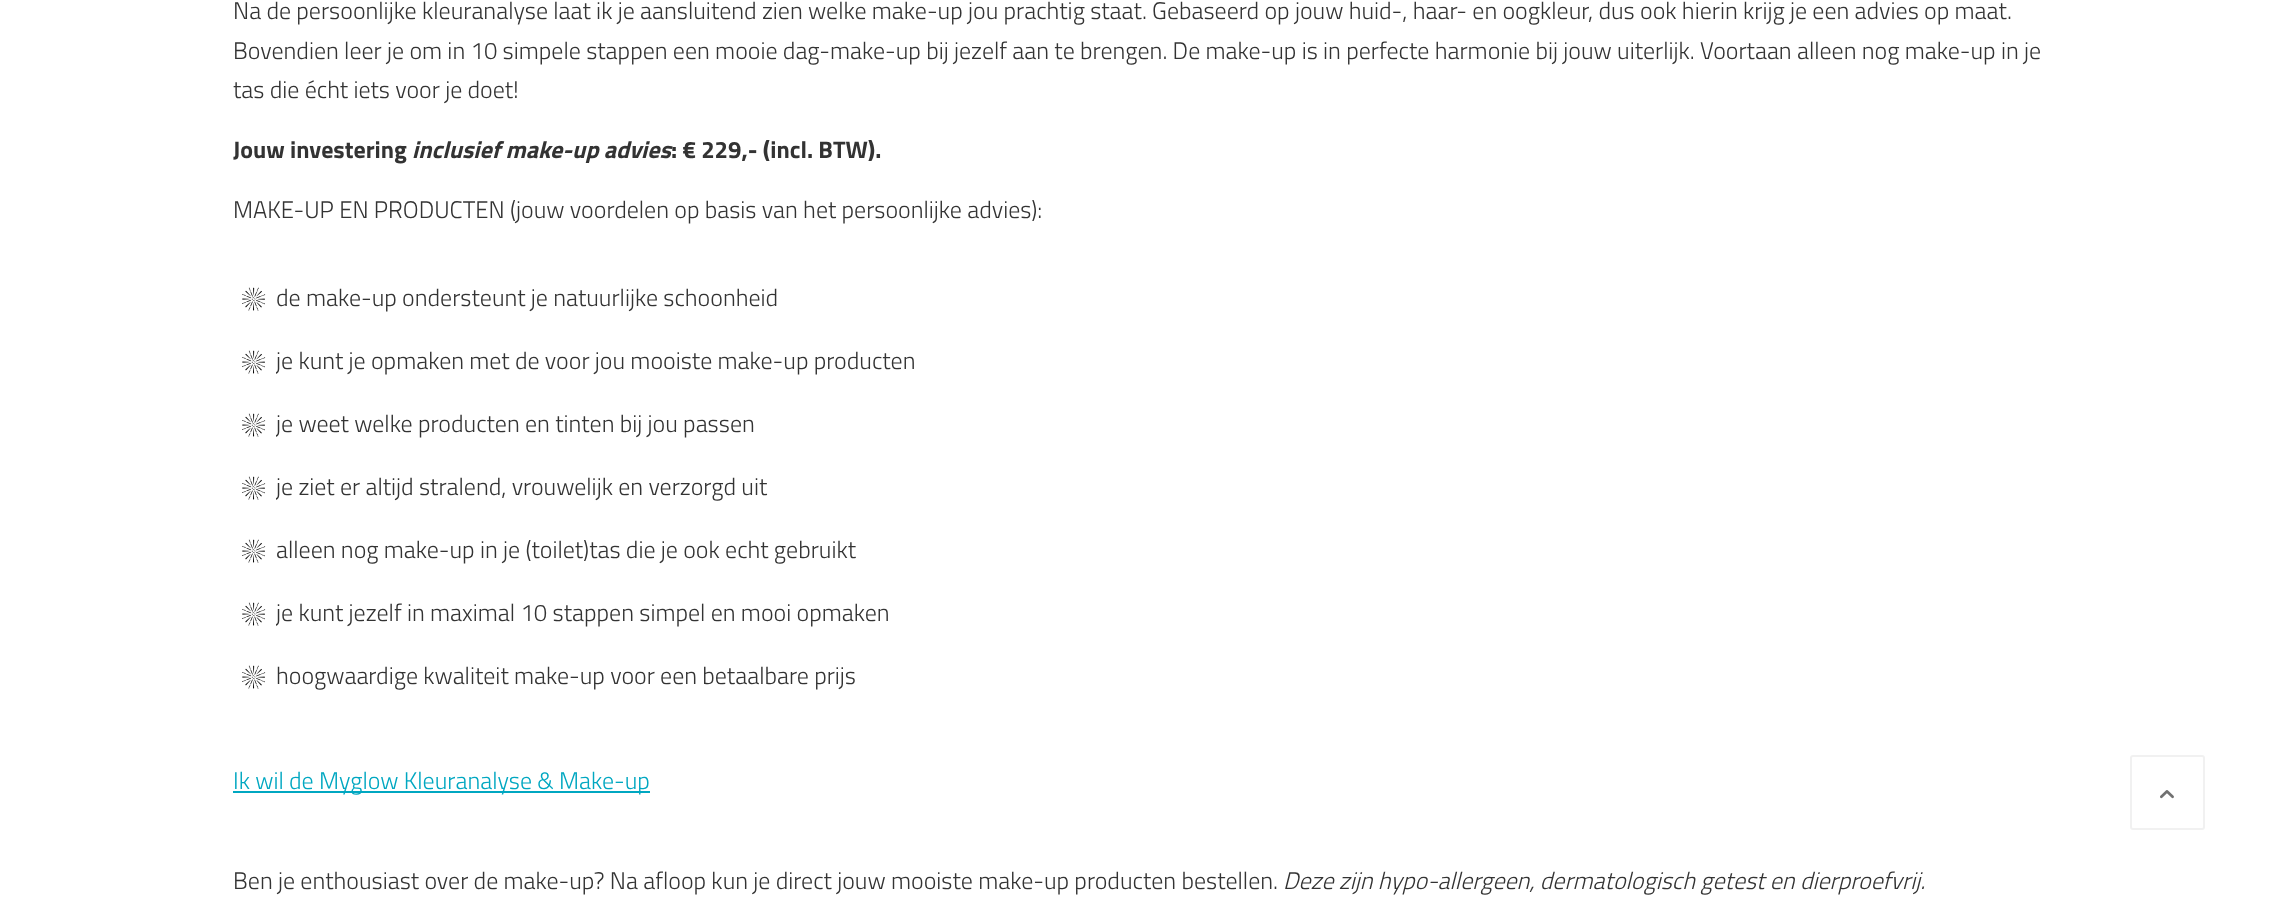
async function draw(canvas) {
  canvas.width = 2279
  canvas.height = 904
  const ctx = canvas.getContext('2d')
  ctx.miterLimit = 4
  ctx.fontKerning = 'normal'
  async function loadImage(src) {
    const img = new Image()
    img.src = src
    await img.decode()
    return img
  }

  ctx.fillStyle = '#fff'
  ctx.fillRect(0, 0, 2279, 904)
  ctx.font = '300 24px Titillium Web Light'
  ctx.fillStyle = '#333'
  ctx.fillText('Na de persoonlijke kleuranalyse laat ik je aansluitend zien welke make-up jou prachtig staat. Gebaseerd op jouw huid-, haar- en oogkleur, dus ook hierin krijg je een advies op maat.', 233, 19)
  ctx.fillText('Bovendien leer je om in 10 simpele stappen een mooie dag-make-up bij jezelf aan te brengen. De make-up is in perfecte harmonie bij jouw uiterlijk. Voortaan alleen nog make-up in je', 233, 59)
  ctx.fillText('tas die écht iets voor je doet!', 233, 98)
  ctx.font = 'bold 24px Titillium Web'
  ctx.fillText('Jouw investering', 233, 158)
  ctx.font = 'italic bold 24px Titillium Web'
  ctx.fillText('inclusief make-up advies', 412, 158)
  ctx.font = 'bold 24px Titillium Web'
  ctx.fillText(': € 229,- (incl. BTW).', 671, 158)
  ctx.font = '300 24px Titillium Web Light'
  ctx.fillText('MAKE-UP EN PRODUCTEN (jouw voordelen op basis van het persoonlijke advies):', 233, 218)
  ctx.drawImage(await loadImage('image0.png'), 242, 287, 24, 24)
  ctx.fillText('de make-up ondersteunt je natuurlijke schoonheid', 276, 306)
  ctx.drawImage(await loadImage('image0.png'), 242, 350, 24, 24)
  ctx.save()
  ctx.beginPath()
  ctx.rect(276, 338, 1772, 63)
  ctx.clip()
  ctx.fillText('je kunt je opmaken met de voor jou mooiste make-up producten', 276, 369)
  ctx.restore()
  ctx.drawImage(await loadImage('image0.png'), 242, 413, 24, 24)
  ctx.save()
  ctx.beginPath()
  ctx.rect(276, 401, 1772, 63)
  ctx.clip()
  ctx.fillText('je weet welke producten en tinten bij jou passen', 276, 432)
  ctx.restore()
  ctx.drawImage(await loadImage('image0.png'), 242, 476, 24, 24)
  ctx.save()
  ctx.beginPath()
  ctx.rect(276, 464, 1772, 63)
  ctx.clip()
  ctx.fillText('je ziet er altijd stralend, vrouwelijk en verzorgd uit', 276, 495)
  ctx.restore()
  ctx.drawImage(await loadImage('image0.png'), 242, 539, 24, 24)
  ctx.fillText('alleen nog make-up in je (toilet)tas die je ook echt gebruikt', 276, 558)
  ctx.drawImage(await loadImage('image0.png'), 242, 602, 24, 24)
  ctx.save()
  ctx.beginPath()
  ctx.rect(276, 590, 1772, 63)
  ctx.clip()
  ctx.fillText('je kunt jezelf in maximal 10 stappen simpel en mooi opmaken', 276, 621)
  ctx.restore()
  ctx.drawImage(await loadImage('image0.png'), 242, 665, 24, 24)
  ctx.fillText('hoogwaardige kwaliteit make-up voor een betaalbare prijs', 276, 684)
  ctx.fillStyle = '#00a7c1'
  ctx.fillRect(233, 791, 417, 2)
  ctx.fillText('Ik wil de Myglow Kleuranalyse & Make-up', 233, 789)
  ctx.fillStyle = '#333'
  ctx.fillText('Ben je enthousiast over de make-up? Na afloop kun je direct jouw mooiste make-up producten bestellen.', 233, 889)
  ctx.font = 'italic 300 24px Titillium Web Light'
  ctx.fillText('Deze zijn hypo-allergeen, dermatologisch getest en dierproefvrij.', 1283, 889)
  ctx.beginPath()
  ctx.roundRect(2131, 756, 73, 73, 2)
  ctx.strokeStyle = '#f1f1f1'
  ctx.lineWidth = 2
  ctx.stroke()
  ctx.drawImage(await loadImage('image1.png'), 2160, 790, 14, 9)
}

draw(document.querySelector('canvas'))
